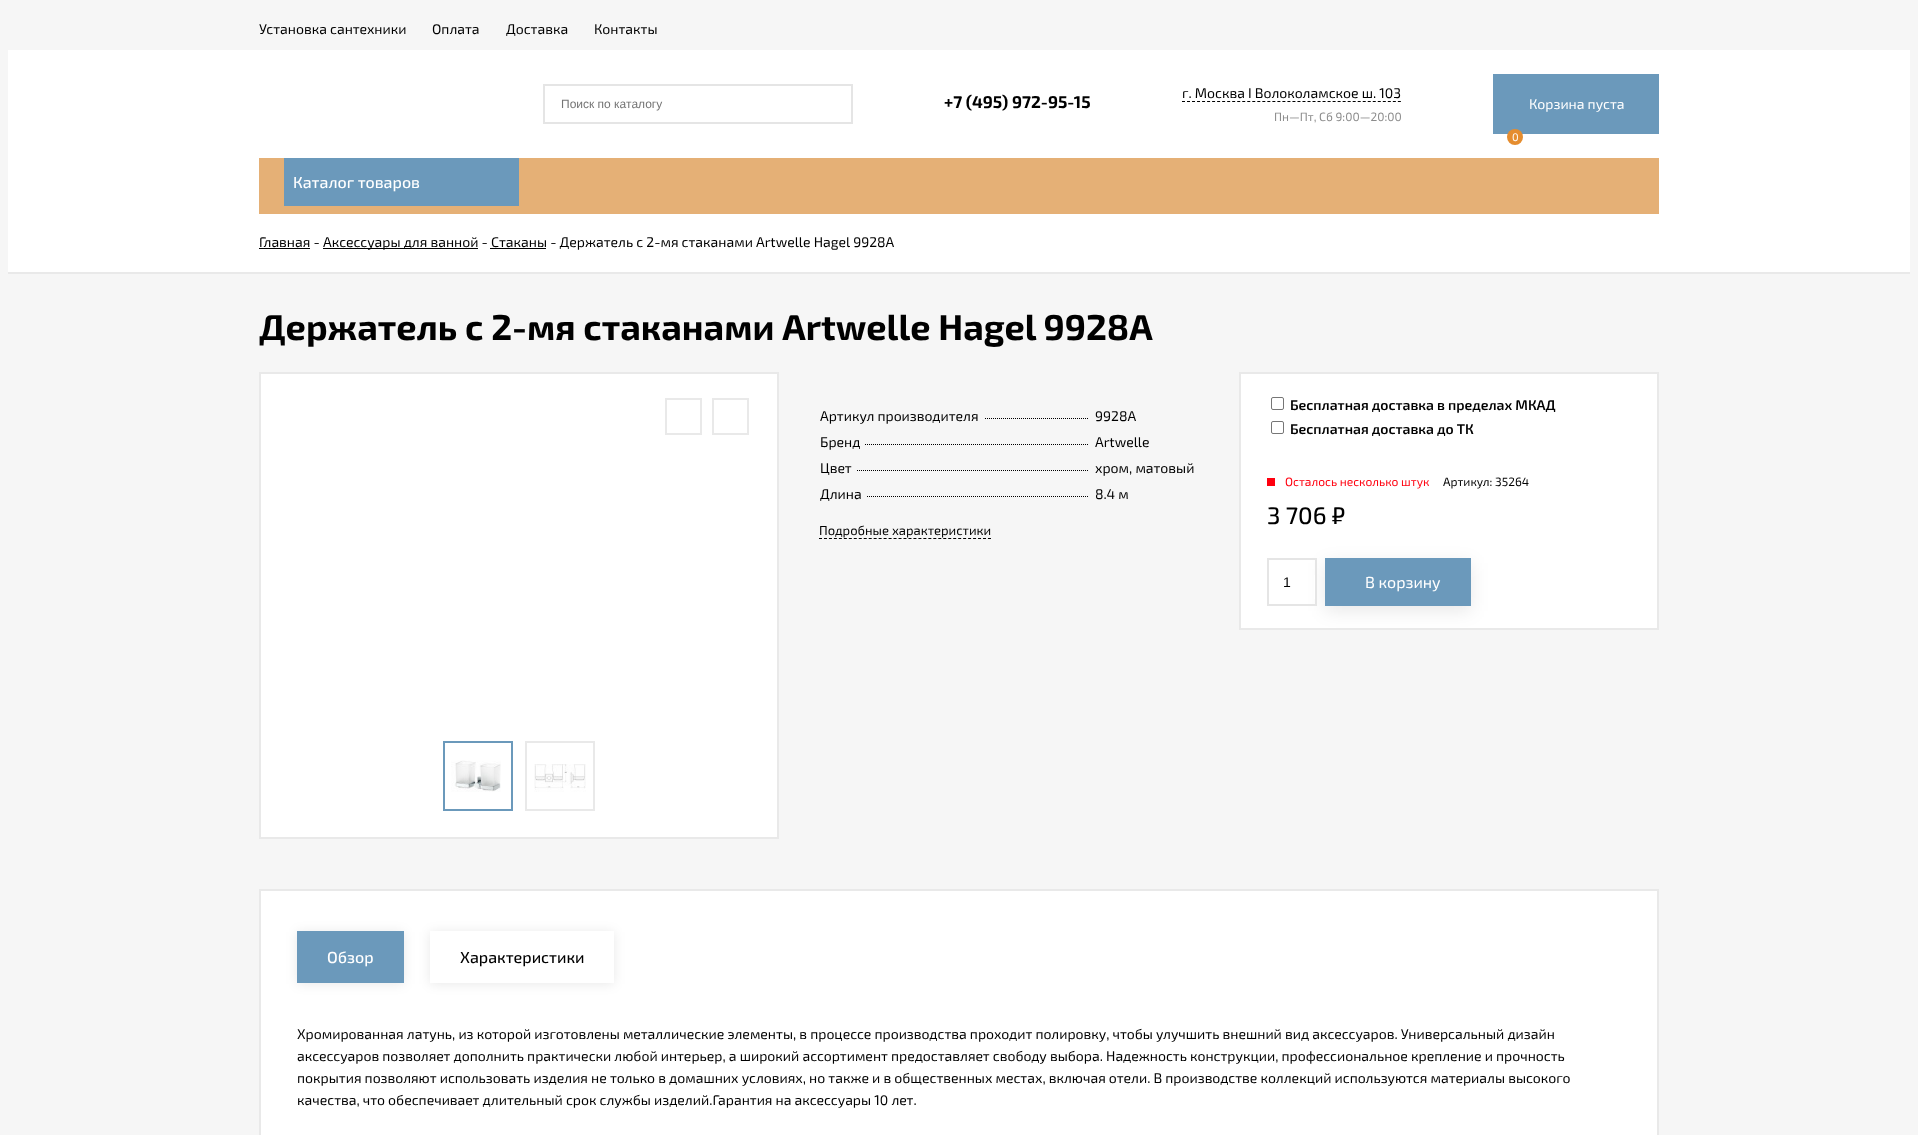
async function draw(canvas) {
  canvas.width = 1918
  canvas.height = 1135
  const ctx = canvas.getContext('2d')
  ctx.miterLimit = 4
  ctx.fontKerning = 'normal'
  async function loadImage(src) {
    const img = new Image()
    img.src = src
    await img.decode()
    return img
  }

  ctx.fillStyle = '#f6f6f6'
  ctx.fillRect(0, 0, 1918, 1135)
  ctx.font = '14px "Exo 2"'
  ctx.fillStyle = '#000'
  ctx.fillText('Установка сантехники', 259, 34)
  ctx.fillText('Оплата', 432, 34)
  ctx.fillText('Доставка', 506, 34)
  ctx.fillText('Контакты', 594, 34)
  ctx.fillStyle = '#fff'
  ctx.fillRect(8, 50, 1902, 222)
  ctx.strokeStyle = '#e5e5e5'
  ctx.lineWidth = 2
  ctx.strokeRect(544, 85, 308, 38)
  ctx.font = '12px Liberation Sans'
  ctx.fillStyle = '#757575'
  ctx.fillText('Поиск по каталогу', 561, 108)
  ctx.font = 'bold 17px "Exo 2"'
  ctx.fillStyle = '#000'
  ctx.fillText('+7 (495) 972-95-15', 944, 108)
  ctx.font = '14px "Exo 2"'
  ctx.fillText('г. Москва I Волоколамское ш. 103', 1182, 98)
  ctx.beginPath()
  ctx.moveTo(1182, 101.5)
  ctx.lineTo(1401, 101.5)
  ctx.strokeStyle = '#000'
  ctx.lineWidth = 1
  ctx.setLineDash([3, 2.02])
  ctx.stroke()
  ctx.font = '12px "Exo 2"'
  ctx.fillStyle = '#8c8c8c'
  ctx.fillText('Пн—Пт, Сб 9:00—20:00', 1274, 121)
  ctx.fillStyle = '#6b99bb'
  ctx.fillRect(1493, 74, 166, 60)
  ctx.font = '14px "Exo 2"'
  ctx.fillStyle = '#fff'
  ctx.fillText('Корзина пуста', 1529, 109)
  ctx.fillStyle = '#e58d2f'
  ctx.beginPath()
  ctx.arc(1515, 137, 8, 0, 2 * Math.PI)
  ctx.fill()
  ctx.font = '11px "Exo 2"'
  ctx.fillStyle = '#fff'
  ctx.fillText('0', 1512, 141)
  ctx.fillStyle = '#e5b076'
  ctx.fillRect(259, 158, 1400, 56)
  ctx.fillStyle = '#6b99bb'
  ctx.fillRect(284, 158, 235, 48)
  ctx.font = '500 16px "Exo 2"'
  ctx.fillStyle = '#fff'
  ctx.fillText('Каталог товаров', 293, 188)
  ctx.font = '14px "Exo 2"'
  ctx.fillStyle = '#000'
  ctx.fillText('Главная -', 259, 247)
  ctx.fillRect(259, 248, 51, 1)
  ctx.fillRect(323, 248, 155, 1)
  ctx.fillText('Аксессуары для ванной - Стаканы - Держатель с 2-мя стаканами Artwelle Hagel 9928A', 323, 247)
  ctx.fillRect(490, 248, 56, 1)
  ctx.fillStyle = '#e9e9e9'
  ctx.fillRect(8, 272, 1902, 2)
  ctx.font = 'bold 36px "Exo 2"'
  ctx.fillStyle = '#000'
  ctx.fillText('Держатель с 2-мя стаканами Artwelle Hagel 9928A', 259, 340)
  ctx.fillStyle = '#fff'
  ctx.beginPath()
  ctx.rect(260, 373, 518, 465)
  ctx.fill()
  ctx.strokeStyle = '#e9e9e9'
  ctx.lineWidth = 2
  ctx.setLineDash([])
  ctx.stroke()
  ctx.strokeRect(666, 399, 35, 35)
  ctx.strokeRect(713, 399, 35, 35)
  ctx.strokeStyle = '#6b99bb'
  ctx.strokeRect(444, 742, 68, 68)
  ctx.drawImage(await loadImage('image0.png'), 451, 760, 50, 32)
  ctx.strokeStyle = '#e9e9e9'
  ctx.strokeRect(526, 742, 68, 68)
  ctx.drawImage(await loadImage('image1.png'), 534, 764, 52, 28)
  ctx.beginPath()
  ctx.moveTo(829, 418.5)
  ctx.lineTo(1089, 418.5)
  ctx.strokeStyle = '#000'
  ctx.lineWidth = 1
  ctx.setLineDash([1, 1])
  ctx.stroke()
  ctx.fillStyle = '#f6f6f6'
  ctx.fillRect(829, 418, 155, 1)
  ctx.font = '14px "Exo 2"'
  ctx.fillStyle = '#000'
  ctx.fillText('Артикул производителя', 820, 421)
  ctx.fillText('9928A', 1095, 421)
  ctx.beginPath()
  ctx.moveTo(829, 444.5)
  ctx.lineTo(1089, 444.5)
  ctx.stroke()
  ctx.fillStyle = '#f6f6f6'
  ctx.fillRect(829, 444, 35, 1)
  ctx.fillStyle = '#000'
  ctx.fillText('Бренд', 820, 447)
  ctx.fillText('Artwelle', 1095, 447)
  ctx.beginPath()
  ctx.moveTo(829, 470.5)
  ctx.lineTo(1089, 470.5)
  ctx.stroke()
  ctx.fillStyle = '#f6f6f6'
  ctx.fillRect(829, 470, 27, 1)
  ctx.fillStyle = '#000'
  ctx.fillText('Цвет', 820, 473)
  ctx.fillText('хром, матовый', 1095, 473)
  ctx.beginPath()
  ctx.moveTo(829, 496.5)
  ctx.lineTo(1089, 496.5)
  ctx.stroke()
  ctx.fillStyle = '#f6f6f6'
  ctx.fillRect(829, 496, 37, 1)
  ctx.fillStyle = '#000'
  ctx.fillText('Длина', 820, 499)
  ctx.fillText('8.4 м', 1095, 499)
  ctx.beginPath()
  ctx.moveTo(819, 538.5)
  ctx.lineTo(991, 538.5)
  ctx.setLineDash([3, 1.97])
  ctx.stroke()
  ctx.font = '13px "Exo 2"'
  ctx.fillText('Подробные характеристики', 819, 535)
  ctx.fillStyle = '#fff'
  ctx.beginPath()
  ctx.rect(1240, 373, 418, 256)
  ctx.fill()
  ctx.strokeStyle = '#e9e9e9'
  ctx.lineWidth = 2
  ctx.setLineDash([])
  ctx.stroke()
  ctx.beginPath()
  ctx.roundRect(1271.5, 397.5, 12, 12, 1.5)
  ctx.strokeStyle = '#767676'
  ctx.lineWidth = 1
  ctx.stroke()
  ctx.font = '600 14px "Exo 2"'
  ctx.fillStyle = '#000'
  ctx.fillText('Бесплатная доставка в пределах МКАД', 1290, 410)
  ctx.beginPath()
  ctx.roundRect(1271.5, 421.5, 12, 12, 1.5)
  ctx.stroke()
  ctx.fillText('Бесплатная доставка до ТК', 1290, 434)
  ctx.fillStyle = '#ff000f'
  ctx.fillRect(1267, 478, 8, 8)
  ctx.font = '12px "Exo 2"'
  ctx.fillText('Осталось несколько штук', 1285, 486)
  ctx.fillStyle = '#000'
  ctx.fillText('Артикул: 35264', 1443, 486)
  ctx.font = '500 24px "Exo 2"'
  ctx.fillText('3 706 ₽', 1267, 524)
  ctx.fillStyle = '#00000017'
  ctx.filter = 'blur(9px)'
  ctx.beginPath()
  ctx.rect(1325, 563, 146, 48)
  ctx.fill()
  ctx.filter = 'none'
  ctx.fillStyle = '#fff'
  ctx.fillRect(1314, 575, 1, 24)
  ctx.strokeStyle = '#e5e5e5'
  ctx.lineWidth = 2
  ctx.strokeRect(1268, 559, 48, 46)
  ctx.font = '14px Liberation Sans'
  ctx.fillStyle = '#000'
  ctx.fillText('1', 1283, 587)
  ctx.fillStyle = '#6b99bb'
  ctx.fillRect(1325, 558, 146, 48)
  ctx.font = '16px "Exo 2"'
  ctx.fillStyle = '#fff'
  ctx.fillText('В корзину', 1365, 588)
  ctx.fillRect(261, 891, 1396, 244)
  ctx.fillStyle = '#e9e9e9'
  ctx.fillRect(259, 889, 1400, 2)
  ctx.fillRect(1657, 889, 2, 246)
  ctx.fillRect(259, 889, 2, 246)
  ctx.fillStyle = '#00000017'
  ctx.filter = 'blur(6px)'
  ctx.beginPath()
  ctx.rect(297, 932, 107, 52)
  ctx.fill()
  ctx.filter = 'none'
  ctx.fillStyle = '#6b99bb'
  ctx.fillRect(297, 931, 107, 52)
  ctx.font = '500 16px "Exo 2"'
  ctx.fillStyle = '#fff'
  ctx.fillText('Обзор', 327, 963)
  ctx.save()
  ctx.beginPath()
  ctx.moveTo(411, 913)
  ctx.lineTo(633, 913)
  ctx.lineTo(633, 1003)
  ctx.lineTo(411, 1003)
  ctx.closePath()
  ctx.moveTo(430, 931)
  ctx.lineTo(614, 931)
  ctx.lineTo(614, 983)
  ctx.lineTo(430, 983)
  ctx.closePath()
  ctx.clip('evenodd')
  ctx.fillStyle = '#00000017'
  ctx.filter = 'blur(6px)'
  ctx.beginPath()
  ctx.rect(430, 932, 184, 52)
  ctx.fill()
  ctx.filter = 'none'
  ctx.restore()
  ctx.fillStyle = '#000'
  ctx.fillText('Характеристики', 460, 963)
  ctx.font = '14px "Exo 2"'
  ctx.fillText('Хромированная латунь, из которой изготовлены металлические элементы, в процессе производства проходит полировку, чтобы улучшить внешний вид аксессуаров. Универсальный дизайн', 297, 1039)
  ctx.fillText('аксессуаров позволяет дополнить практически любой интерьер, а широкий ассортимент предоставляет свободу выбора. Надежность конструкции, профессиональное крепление и прочность', 297, 1061)
  ctx.fillText('покрытия позволяют использовать изделия не только в домашних условиях, но также и в общественных местах, включая отели. В производстве коллекций используются материалы высокого', 297, 1083)
  ctx.fillText('качества, что обеспечивает длительный срок службы изделий.Гарантия на аксессуары 10 лет.', 297, 1105)
}

draw(document.querySelector('canvas'))
